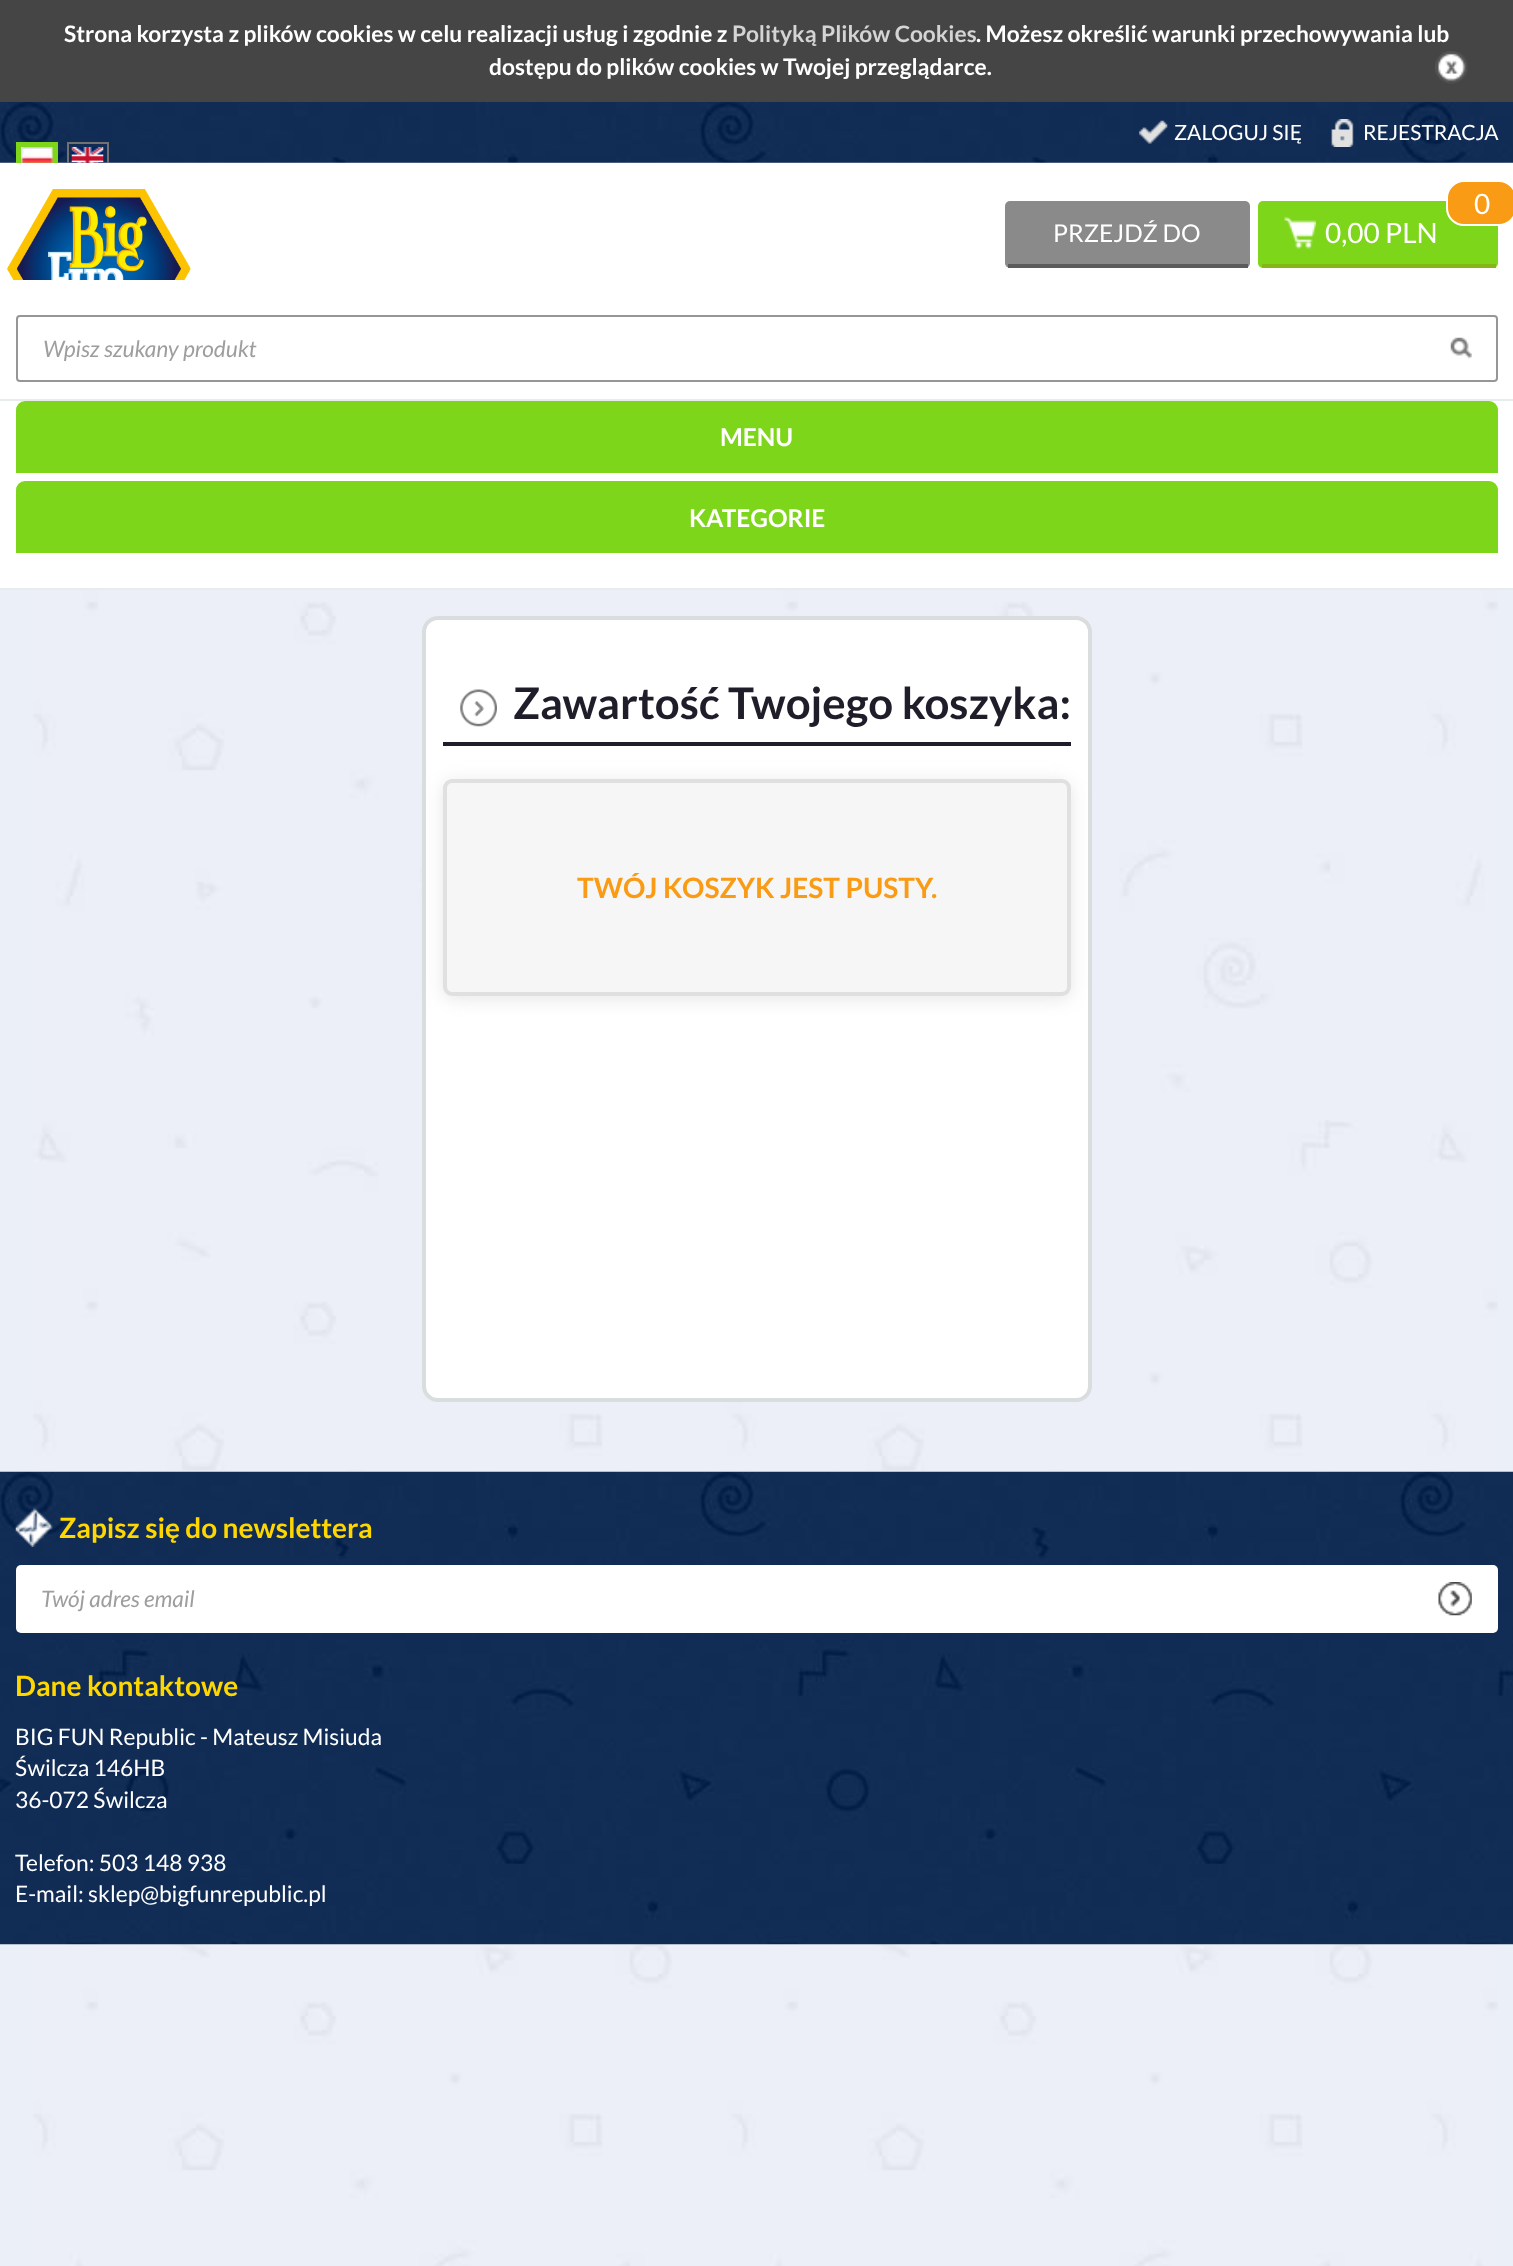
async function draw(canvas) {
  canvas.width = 1513
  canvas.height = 2266
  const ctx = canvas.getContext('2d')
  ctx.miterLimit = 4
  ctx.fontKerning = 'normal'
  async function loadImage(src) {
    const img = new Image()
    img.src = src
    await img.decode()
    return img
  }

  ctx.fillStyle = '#eaeff8'
  ctx.fillRect(0, 0, 1513, 2266)
  ctx.drawImage(await loadImage('image0.png'), 33, 162, 1465, 2104)
  ctx.fillStyle = '#454545'
  ctx.fillRect(0, 0, 1513, 102)
  ctx.font = 'bold 22.75px Lato'
  ctx.fillStyle = '#fff'
  ctx.fillText('Strona korzysta z plików cookies w celu realizacji usług i zgodnie z', 64, 42)
  ctx.fillStyle = '#d4d4d4'
  ctx.fillText('Polityką Plików Cookies', 732, 42)
  ctx.fillStyle = '#fff'
  ctx.fillText('. Możesz określić warunki przechowywania lub', 976, 42)
  ctx.fillText('dostępu do plików cookies w Twojej przeglądarce.', 489, 75)
  ctx.drawImage(await loadImage('image1.png'), 1435, 51, 33, 33)
  ctx.drawImage(await loadImage('image2.png'), 0, 102, 1513, 61)
  ctx.drawImage(await loadImage('image3.png'), 1139, 120, 29, 24)
  ctx.font = '21px Lato'
  ctx.fillText('ZALOGUJ SIĘ', 1174, 140)
  ctx.drawImage(await loadImage('image4.png'), 1331, 119, 23, 28)
  ctx.fillText('REJESTRACJA', 1363, 140)
  ctx.fillStyle = '#7ed61a'
  ctx.fillRect(16, 142, 42, 21)
  ctx.drawImage(await loadImage('image5.png'), 21, 147, 32, 16)
  ctx.strokeStyle = '#717171'
  ctx.lineWidth = 2
  ctx.strokeRect(68, 143, 40, 31)
  ctx.drawImage(await loadImage('image6.png'), 71, 147, 33, 16)
  ctx.fillStyle = '#fff'
  ctx.fillRect(0, 163, 1513, 236)
  ctx.drawImage(await loadImage('image7.png'), 7, 189, 184, 91)
  ctx.fillStyle = '#8a8a8a'
  ctx.beginPath()
  ctx.roundRect(1005, 201, 245, 67, 5)
  ctx.fill()
  ctx.fillStyle = '#5b5b5b'
  ctx.fillRect(1008, 264, 240, 4)
  ctx.font = '24.5px Lato'
  ctx.fillStyle = '#fff'
  ctx.fillText('PRZEJDŹ DO', 1053, 242)
  ctx.fillStyle = '#7ed61a'
  ctx.beginPath()
  ctx.roundRect(1258, 201, 240, 67, 5)
  ctx.fill()
  ctx.fillStyle = '#85b516'
  ctx.fillRect(1262, 264, 234, 4)
  ctx.fillStyle = '#f99b15'
  ctx.beginPath()
  ctx.roundRect(1447, 181, 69, 44, 17)
  ctx.fill()
  ctx.strokeStyle = '#fff'
  ctx.stroke()
  ctx.font = '28px Lato'
  ctx.fillStyle = '#fff'
  ctx.fillText('0', 1474, 214)
  ctx.drawImage(await loadImage('image8.png'), 1284, 217, 32, 32)
  ctx.fillText('0,00 PLN', 1325, 243)
  ctx.beginPath()
  ctx.roundRect(17, 316, 1480, 65, 3)
  ctx.strokeStyle = '#969696'
  ctx.stroke()
  ctx.font = 'italic 22.75px Lato'
  ctx.fillStyle = '#9e9e9e'
  ctx.fillText('Wpisz szukany produkt', 43, 357)
  ctx.drawImage(await loadImage('image9.png'), 1450, 337, 22, 22)
  ctx.fillStyle = '#e8ebec'
  ctx.fillRect(0, 399, 1513, 2)
  ctx.fillRect(0, 588, 1513, 2)
  ctx.fillStyle = '#fff'
  ctx.fillRect(0, 401, 1513, 187)
  ctx.fillStyle = '#7ed61a'
  ctx.beginPath()
  ctx.roundRect(16, 401, 1482, 72, [9, 9, 0, 0])
  ctx.fill()
  ctx.font = 'bold 24.5px Lato'
  ctx.fillStyle = '#fff'
  ctx.fillText('MENU', 720, 446)
  ctx.fillStyle = '#7ed61a'
  ctx.beginPath()
  ctx.roundRect(16, 481, 1482, 72, [9, 9, 0, 0])
  ctx.fill()
  ctx.fillStyle = '#fff'
  ctx.fillText('KATEGORIE', 689, 527)
  ctx.beginPath()
  ctx.roundRect(424, 618, 666, 782, 14)
  ctx.fill()
  ctx.strokeStyle = '#daddde'
  ctx.lineWidth = 4
  ctx.stroke()
  ctx.drawImage(await loadImage('image10.png'), 460, 689, 37, 38)
  ctx.fillStyle = '#1e1d29'
  ctx.fillRect(443, 742, 628, 4)
  ctx.font = 'bold 43.75px Lato'
  ctx.fillText('Zawartość Twojego koszyka:', 513, 719)
  ctx.fillStyle = '#e7e7e7'
  ctx.filter = 'blur(9px)'
  ctx.beginPath()
  ctx.roundRect(443, 782, 628, 217, 9)
  ctx.fill()
  ctx.filter = 'none'
  ctx.fillStyle = '#f6f6f6'
  ctx.beginPath()
  ctx.roundRect(445, 781, 624, 213, 7)
  ctx.fill()
  ctx.strokeStyle = '#e0e0e0'
  ctx.stroke()
  ctx.font = 'bold 28px Lato'
  ctx.fillStyle = '#f99b15'
  ctx.fillText('TWÓJ KOSZYK JEST PUSTY.', 577, 898)
  ctx.drawImage(await loadImage('image11.png'), 0, 1471, 1513, 474)
  ctx.drawImage(await loadImage('image12.png'), 15, 1507, 38, 40)
  ctx.fillStyle = '#ffd700'
  ctx.fillText('Zapisz się do newslettera', 59, 1538)
  ctx.fillStyle = '#fff'
  ctx.beginPath()
  ctx.roundRect(16, 1565, 1482, 68, 5)
  ctx.fill()
  ctx.font = 'italic 22.75px Lato'
  ctx.fillStyle = '#9e9e9e'
  ctx.fillText('Twój adres email', 41, 1607)
  ctx.drawImage(await loadImage('image13.png'), 1438, 1582, 34, 34)
  ctx.font = 'bold 28px Lato'
  ctx.fillStyle = '#ffd700'
  ctx.fillText('Dane kontaktowe', 15, 1696)
  ctx.font = '22.75px Lato'
  ctx.fillStyle = '#fff'
  ctx.fillText('BIG FUN Republic - Mateusz Misiuda', 15, 1745)
  ctx.fillText('Świlcza 146HB', 15, 1776)
  ctx.fillText('36-072 Świlcza', 15, 1808)
  ctx.fillText('Telefon: 503 148 938', 15, 1871)
  ctx.fillText('E-mail: sklep@bigfunrepublic.pl', 15, 1902)
}

draw(document.querySelector('canvas'))
